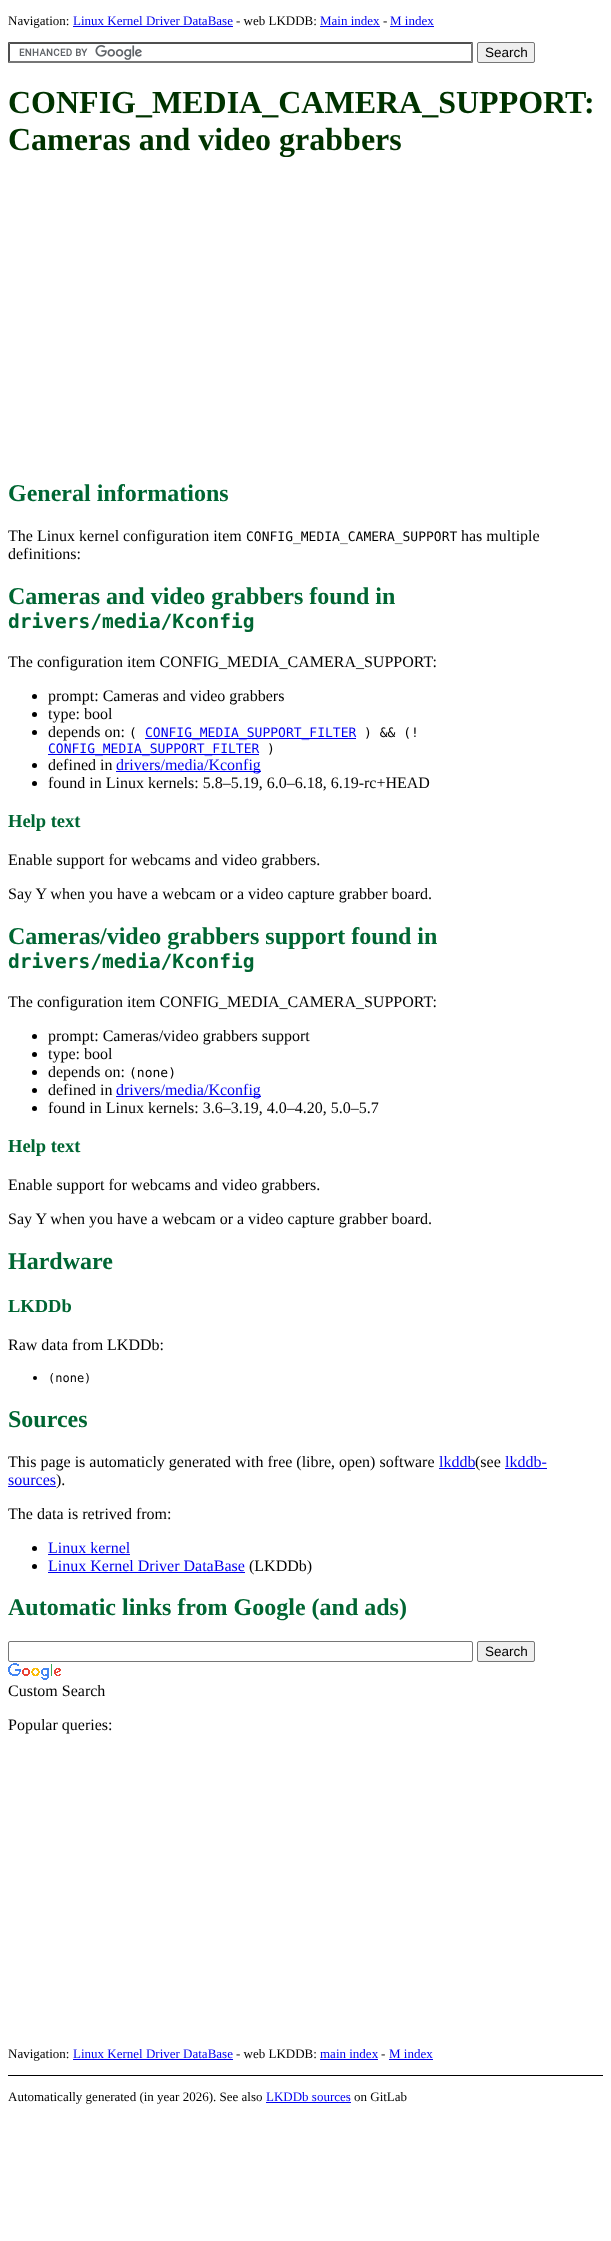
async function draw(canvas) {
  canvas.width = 611
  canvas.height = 2241
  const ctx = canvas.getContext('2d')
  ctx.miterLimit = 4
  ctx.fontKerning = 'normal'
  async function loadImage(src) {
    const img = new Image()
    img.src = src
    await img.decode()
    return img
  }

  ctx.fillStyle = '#fff'
  ctx.fillRect(0, 0, 611, 2241)
  ctx.font = '13px Liberation Serif'
  ctx.fillStyle = '#000'
  ctx.fillText('Navigation:', 8, 25)
  ctx.fillStyle = '#00e'
  ctx.fillText('Linux Kernel Driver DataBase', 73, 25)
  ctx.fillRect(73, 26, 160, 1)
  ctx.fillStyle = '#000'
  ctx.fillText('- web LKDDB:', 236, 25)
  ctx.fillStyle = '#00e'
  ctx.fillText('Main index', 320, 25)
  ctx.fillRect(320, 26, 60, 1)
  ctx.fillStyle = '#000'
  ctx.fillText('-', 383, 25)
  ctx.fillStyle = '#00e'
  ctx.fillText('M index', 390, 25)
  ctx.fillRect(390, 26, 44, 1)
  ctx.drawImage(await loadImage('image0.png'), 19, 45, 123, 15)
  ctx.fillStyle = '#4f4f4f'
  ctx.beginPath()
  ctx.moveTo(8, 42)
  ctx.lineTo(473, 42)
  ctx.lineTo(471, 44)
  ctx.lineTo(10, 44)
  ctx.closePath()
  ctx.fill()
  ctx.fillStyle = '#767676'
  ctx.beginPath()
  ctx.moveTo(473, 42)
  ctx.lineTo(473, 63)
  ctx.lineTo(471, 61)
  ctx.lineTo(471, 44)
  ctx.closePath()
  ctx.fill()
  ctx.beginPath()
  ctx.moveTo(473, 63)
  ctx.lineTo(8, 63)
  ctx.lineTo(10, 61)
  ctx.lineTo(471, 61)
  ctx.closePath()
  ctx.fill()
  ctx.fillStyle = '#4f4f4f'
  ctx.beginPath()
  ctx.moveTo(8, 63)
  ctx.lineTo(8, 42)
  ctx.lineTo(10, 44)
  ctx.lineTo(10, 61)
  ctx.closePath()
  ctx.fill()
  ctx.fillStyle = '#efefef'
  ctx.beginPath()
  ctx.roundRect(477.5, 42.5, 57, 20, 1.5)
  ctx.fill()
  ctx.strokeStyle = '#767676'
  ctx.stroke()
  ctx.font = '13.5px Liberation Sans'
  ctx.fillStyle = '#000'
  ctx.fillText('Search', 485, 57)
  ctx.font = 'bold 32px Liberation Serif'
  ctx.fillStyle = '#030'
  ctx.fillText('CONFIG_MEDIA_CAMERA_SUPPORT:', 8, 113)
  ctx.fillText('Cameras and video grabbers', 8, 150)
  ctx.font = 'bold 24px Liberation Serif'
  ctx.fillStyle = '#063'
  ctx.fillText('General informations', 8, 501)
  ctx.font = '16px Liberation Serif'
  ctx.fillStyle = '#000'
  ctx.fillText('The Linux kernel configuration item', 8, 541)
  ctx.font = '13px DejaVu Sans Mono'
  ctx.fillText('CONFIG_MEDIA_CAMERA_SUPPORT', 246, 541)
  ctx.font = '16px Liberation Serif'
  ctx.fillText('has multiple', 461, 541)
  ctx.fillText('definitions:', 8, 559)
  ctx.font = 'bold 24px Liberation Serif'
  ctx.fillStyle = '#063'
  ctx.fillText('Cameras and video grabbers found in', 8, 604)
  ctx.font = 'bold 19.5px DejaVu Sans Mono'
  ctx.fillText('drivers/media/Kconfig', 8, 628)
  ctx.font = '16px Liberation Serif'
  ctx.fillStyle = '#000'
  ctx.fillText('The configuration item CONFIG_MEDIA_CAMERA_SUPPORT:', 8, 667)
  ctx.beginPath()
  ctx.arc(34.5, 696.5, 2.5, 0, 2 * Math.PI)
  ctx.fill()
  ctx.fillText('prompt: Cameras and video grabbers', 48, 701)
  ctx.beginPath()
  ctx.arc(34.5, 714.5, 2.5, 0, 2 * Math.PI)
  ctx.fill()
  ctx.fillText('type: bool', 48, 719)
  ctx.beginPath()
  ctx.arc(34.5, 732.5, 2.5, 0, 2 * Math.PI)
  ctx.fill()
  ctx.fillText('depends on:', 48, 737)
  ctx.font = '13px DejaVu Sans Mono'
  ctx.fillText('(', 129, 737)
  ctx.fillStyle = '#00e'
  ctx.fillRect(145, 738, 211, 1)
  ctx.fillText('CONFIG_MEDIA_SUPPORT_FILTER', 145, 737)
  ctx.fillStyle = '#000'
  ctx.fillText(') && (!', 364, 737)
  ctx.fillStyle = '#00e'
  ctx.fillRect(48, 754, 211, 1)
  ctx.fillText('CONFIG_MEDIA_SUPPORT_FILTER', 48, 753)
  ctx.fillStyle = '#000'
  ctx.fillText(')', 267, 753)
  ctx.beginPath()
  ctx.arc(34.5, 765.5, 2.5, 0, 2 * Math.PI)
  ctx.fill()
  ctx.font = '16px Liberation Serif'
  ctx.fillText('defined in', 48, 770)
  ctx.fillStyle = '#00e'
  ctx.fillRect(116, 771, 145, 1)
  ctx.fillText('drivers/media/Kconfig', 116, 770)
  ctx.fillStyle = '#000'
  ctx.beginPath()
  ctx.arc(34.5, 783.5, 2.5, 0, 2 * Math.PI)
  ctx.fill()
  ctx.fillText('found in Linux kernels: 5.8–5.19, 6.0–6.18, 6.19-rc+HEAD', 48, 788)
  ctx.font = 'bold 18.5px Liberation Serif'
  ctx.fillStyle = '#063'
  ctx.fillText('Help text', 8, 827)
  ctx.font = '16px Liberation Serif'
  ctx.fillStyle = '#000'
  ctx.fillText('Enable support for webcams and video grabbers.', 8, 865)
  ctx.fillText('Say Y when you have a webcam or a video capture grabber board.', 8, 899)
  ctx.font = 'bold 24px Liberation Serif'
  ctx.fillStyle = '#063'
  ctx.fillText('Cameras/video grabbers support found in', 8, 944)
  ctx.font = 'bold 19.5px DejaVu Sans Mono'
  ctx.fillText('drivers/media/Kconfig', 8, 968)
  ctx.font = '16px Liberation Serif'
  ctx.fillStyle = '#000'
  ctx.fillText('The configuration item CONFIG_MEDIA_CAMERA_SUPPORT:', 8, 1007)
  ctx.beginPath()
  ctx.arc(34.5, 1036.5, 2.5, 0, 2 * Math.PI)
  ctx.fill()
  ctx.fillText('prompt: Cameras/video grabbers support', 48, 1041)
  ctx.beginPath()
  ctx.arc(34.5, 1054.5, 2.5, 0, 2 * Math.PI)
  ctx.fill()
  ctx.fillText('type: bool', 48, 1059)
  ctx.beginPath()
  ctx.arc(34.5, 1072.5, 2.5, 0, 2 * Math.PI)
  ctx.fill()
  ctx.fillText('depends on:', 48, 1077)
  ctx.font = '13px DejaVu Sans Mono'
  ctx.fillText('(none)', 129, 1077)
  ctx.beginPath()
  ctx.arc(34.5, 1090.5, 2.5, 0, 2 * Math.PI)
  ctx.fill()
  ctx.font = '16px Liberation Serif'
  ctx.fillText('defined in', 48, 1095)
  ctx.fillStyle = '#00e'
  ctx.fillRect(116, 1096, 145, 1)
  ctx.fillText('drivers/media/Kconfig', 116, 1095)
  ctx.fillStyle = '#000'
  ctx.beginPath()
  ctx.arc(34.5, 1108.5, 2.5, 0, 2 * Math.PI)
  ctx.fill()
  ctx.fillText('found in Linux kernels: 3.6–3.19, 4.0–4.20, 5.0–5.7', 48, 1113)
  ctx.font = 'bold 18.5px Liberation Serif'
  ctx.fillStyle = '#063'
  ctx.fillText('Help text', 8, 1152)
  ctx.font = '16px Liberation Serif'
  ctx.fillStyle = '#000'
  ctx.fillText('Enable support for webcams and video grabbers.', 8, 1190)
  ctx.fillText('Say Y when you have a webcam or a video capture grabber board.', 8, 1224)
  ctx.font = 'bold 24px Liberation Serif'
  ctx.fillStyle = '#063'
  ctx.fillText('Hardware', 8, 1269)
  ctx.font = 'bold 18.5px Liberation Serif'
  ctx.fillText('LKDDb', 8, 1312)
  ctx.font = '16px Liberation Serif'
  ctx.fillStyle = '#000'
  ctx.fillText('Raw data from LKDDb:', 8, 1350)
  ctx.beginPath()
  ctx.arc(35, 1378, 2, 0, 2 * Math.PI)
  ctx.fill()
  ctx.font = '12px DejaVu Sans Mono'
  ctx.fillText('(none)', 48, 1382)
  ctx.font = 'bold 24px Liberation Serif'
  ctx.fillStyle = '#063'
  ctx.fillText('Sources', 8, 1427)
  ctx.font = '16px Liberation Serif'
  ctx.fillStyle = '#000'
  ctx.fillText('This page is automaticly generated with free (libre, open) software', 8, 1467)
  ctx.fillStyle = '#00e'
  ctx.fillText('lkddb', 439, 1467)
  ctx.fillRect(439, 1468, 36, 1)
  ctx.fillStyle = '#000'
  ctx.fillText('(see', 475, 1467)
  ctx.fillStyle = '#00e'
  ctx.fillText('lkddb-', 505, 1467)
  ctx.fillRect(505, 1468, 42, 1)
  ctx.fillText('sources', 8, 1485)
  ctx.fillRect(8, 1486, 48, 1)
  ctx.fillStyle = '#000'
  ctx.fillText(').', 56, 1485)
  ctx.fillText('The data is retrived from:', 8, 1519)
  ctx.beginPath()
  ctx.arc(34.5, 1548.5, 2.5, 0, 2 * Math.PI)
  ctx.fill()
  ctx.fillStyle = '#00e'
  ctx.fillText('Linux kernel', 48, 1553)
  ctx.fillRect(48, 1554, 82, 1)
  ctx.fillStyle = '#000'
  ctx.beginPath()
  ctx.arc(34.5, 1566.5, 2.5, 0, 2 * Math.PI)
  ctx.fill()
  ctx.fillStyle = '#00e'
  ctx.fillText('Linux Kernel Driver DataBase', 48, 1571)
  ctx.fillRect(48, 1572, 197, 1)
  ctx.fillStyle = '#000'
  ctx.fillText('(LKDDb)', 249, 1571)
  ctx.font = 'bold 24px Liberation Serif'
  ctx.fillStyle = '#063'
  ctx.fillText('Automatic links from Google (and ads)', 8, 1615)
  ctx.beginPath()
  ctx.roundRect(8.5, 1641.5, 464, 20, 1.5)
  ctx.stroke()
  ctx.fillStyle = '#efefef'
  ctx.beginPath()
  ctx.roundRect(477.5, 1641.5, 57, 20, 1.5)
  ctx.fill()
  ctx.stroke()
  ctx.font = '13.5px Liberation Sans'
  ctx.fillStyle = '#000'
  ctx.fillText('Search', 485, 1656)
  ctx.drawImage(await loadImage('image1.png'), 8, 1663, 53, 17)
  ctx.font = '16px Liberation Serif'
  ctx.fillText('Custom Search', 8, 1696)
  ctx.fillText('Popular queries:', 8, 1730)
  ctx.font = '13px Liberation Serif'
  ctx.fillText('Navigation:', 8, 2058)
  ctx.fillStyle = '#00e'
  ctx.fillText('Linux Kernel Driver DataBase', 73, 2058)
  ctx.fillRect(73, 2059, 160, 1)
  ctx.fillStyle = '#000'
  ctx.fillText('- web LKDDB:', 236, 2058)
  ctx.fillStyle = '#00e'
  ctx.fillText('main index', 320, 2058)
  ctx.fillRect(320, 2059, 58, 1)
  ctx.fillStyle = '#000'
  ctx.fillText('-', 381, 2058)
  ctx.fillStyle = '#00e'
  ctx.fillText('M index', 389, 2058)
  ctx.fillRect(389, 2059, 44, 1)
  ctx.fillStyle = '#000'
  ctx.fillRect(8, 2075, 595, 1)
  ctx.fillText('Automatically generated (in year 2026). See also', 8, 2101)
  ctx.fillStyle = '#00e'
  ctx.fillText('LKDDb sources', 266, 2101)
  ctx.fillRect(266, 2102, 85, 1)
  ctx.fillStyle = '#000'
  ctx.fillText('on GitLab', 354, 2101)
}

draw(document.querySelector('canvas'))
